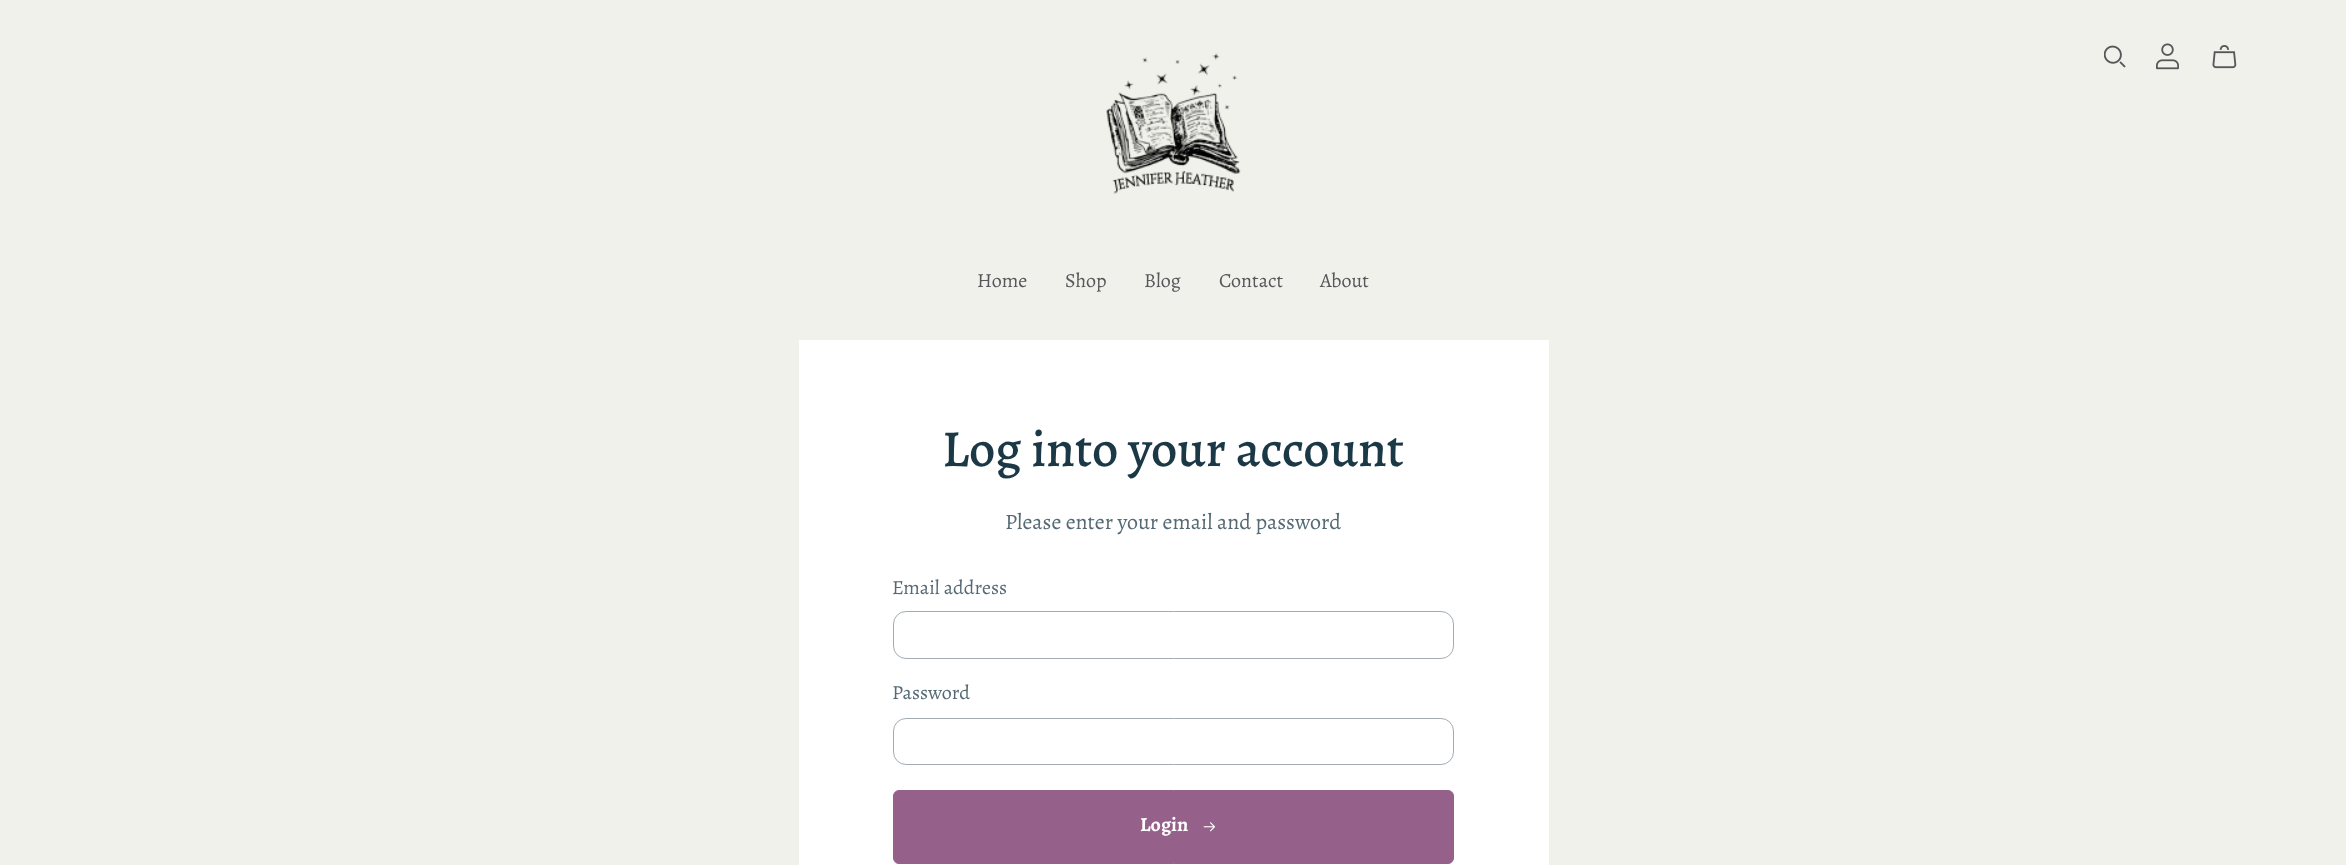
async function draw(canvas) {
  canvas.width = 2346
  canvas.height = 865
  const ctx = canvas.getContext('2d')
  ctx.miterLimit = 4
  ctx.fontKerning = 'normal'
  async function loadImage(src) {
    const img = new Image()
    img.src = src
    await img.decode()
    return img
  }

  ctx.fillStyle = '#f0f1ea'
  ctx.fillRect(0, 0, 2346, 865)
  ctx.drawImage(await loadImage('image0.png'), 2104, 45, 22, 23)
  ctx.drawImage(await loadImage('image1.png'), 2156, 43, 23, 27)
  ctx.drawImage(await loadImage('image2.png'), 2212, 45, 25, 24)
  ctx.drawImage(await loadImage('image3.png'), 1106, 53, 135, 141)
  ctx.font = '20px Alegreya'
  ctx.fillStyle = '#57565b'
  ctx.fillText('Home', 977, 287)
  ctx.fillText('Shop', 1065, 287)
  ctx.fillText('Blog', 1144, 287)
  ctx.fillText('Contact', 1219, 287)
  ctx.fillText('About', 1320, 287)
  ctx.fillStyle = '#fff'
  ctx.fillRect(799, 340, 750, 525)
  ctx.font = '500 52px Alegreya'
  ctx.fillStyle = '#1b3846'
  ctx.fillText('Log into your account', 942, 466)
  ctx.font = '22px Alegreya'
  ctx.fillStyle = '#556a75'
  ctx.fillText('Please enter your email and password', 1005, 529)
  ctx.font = '20px Alegreya'
  ctx.fillText('Email address', 892, 594)
  ctx.beginPath()
  ctx.roundRect(893.5, 611.5, 560, 47, 12.5)
  ctx.strokeStyle = '#a2adb3'
  ctx.stroke()
  ctx.fillText('Password', 892, 699)
  ctx.beginPath()
  ctx.roundRect(893.5, 718.5, 560, 46, 12.5)
  ctx.stroke()
  ctx.fillStyle = '#956089'
  ctx.beginPath()
  ctx.roundRect(893.5, 790.5, 560, 73, 5.5)
  ctx.fill()
  ctx.strokeStyle = '#956089'
  ctx.stroke()
  ctx.font = 'bold 20px Alegreya'
  ctx.fillStyle = '#fff'
  ctx.fillText('Login', 1140, 831)
  ctx.drawImage(await loadImage('image4.png'), 1203, 822, 13, 10)
}

draw(document.querySelector('canvas'))
